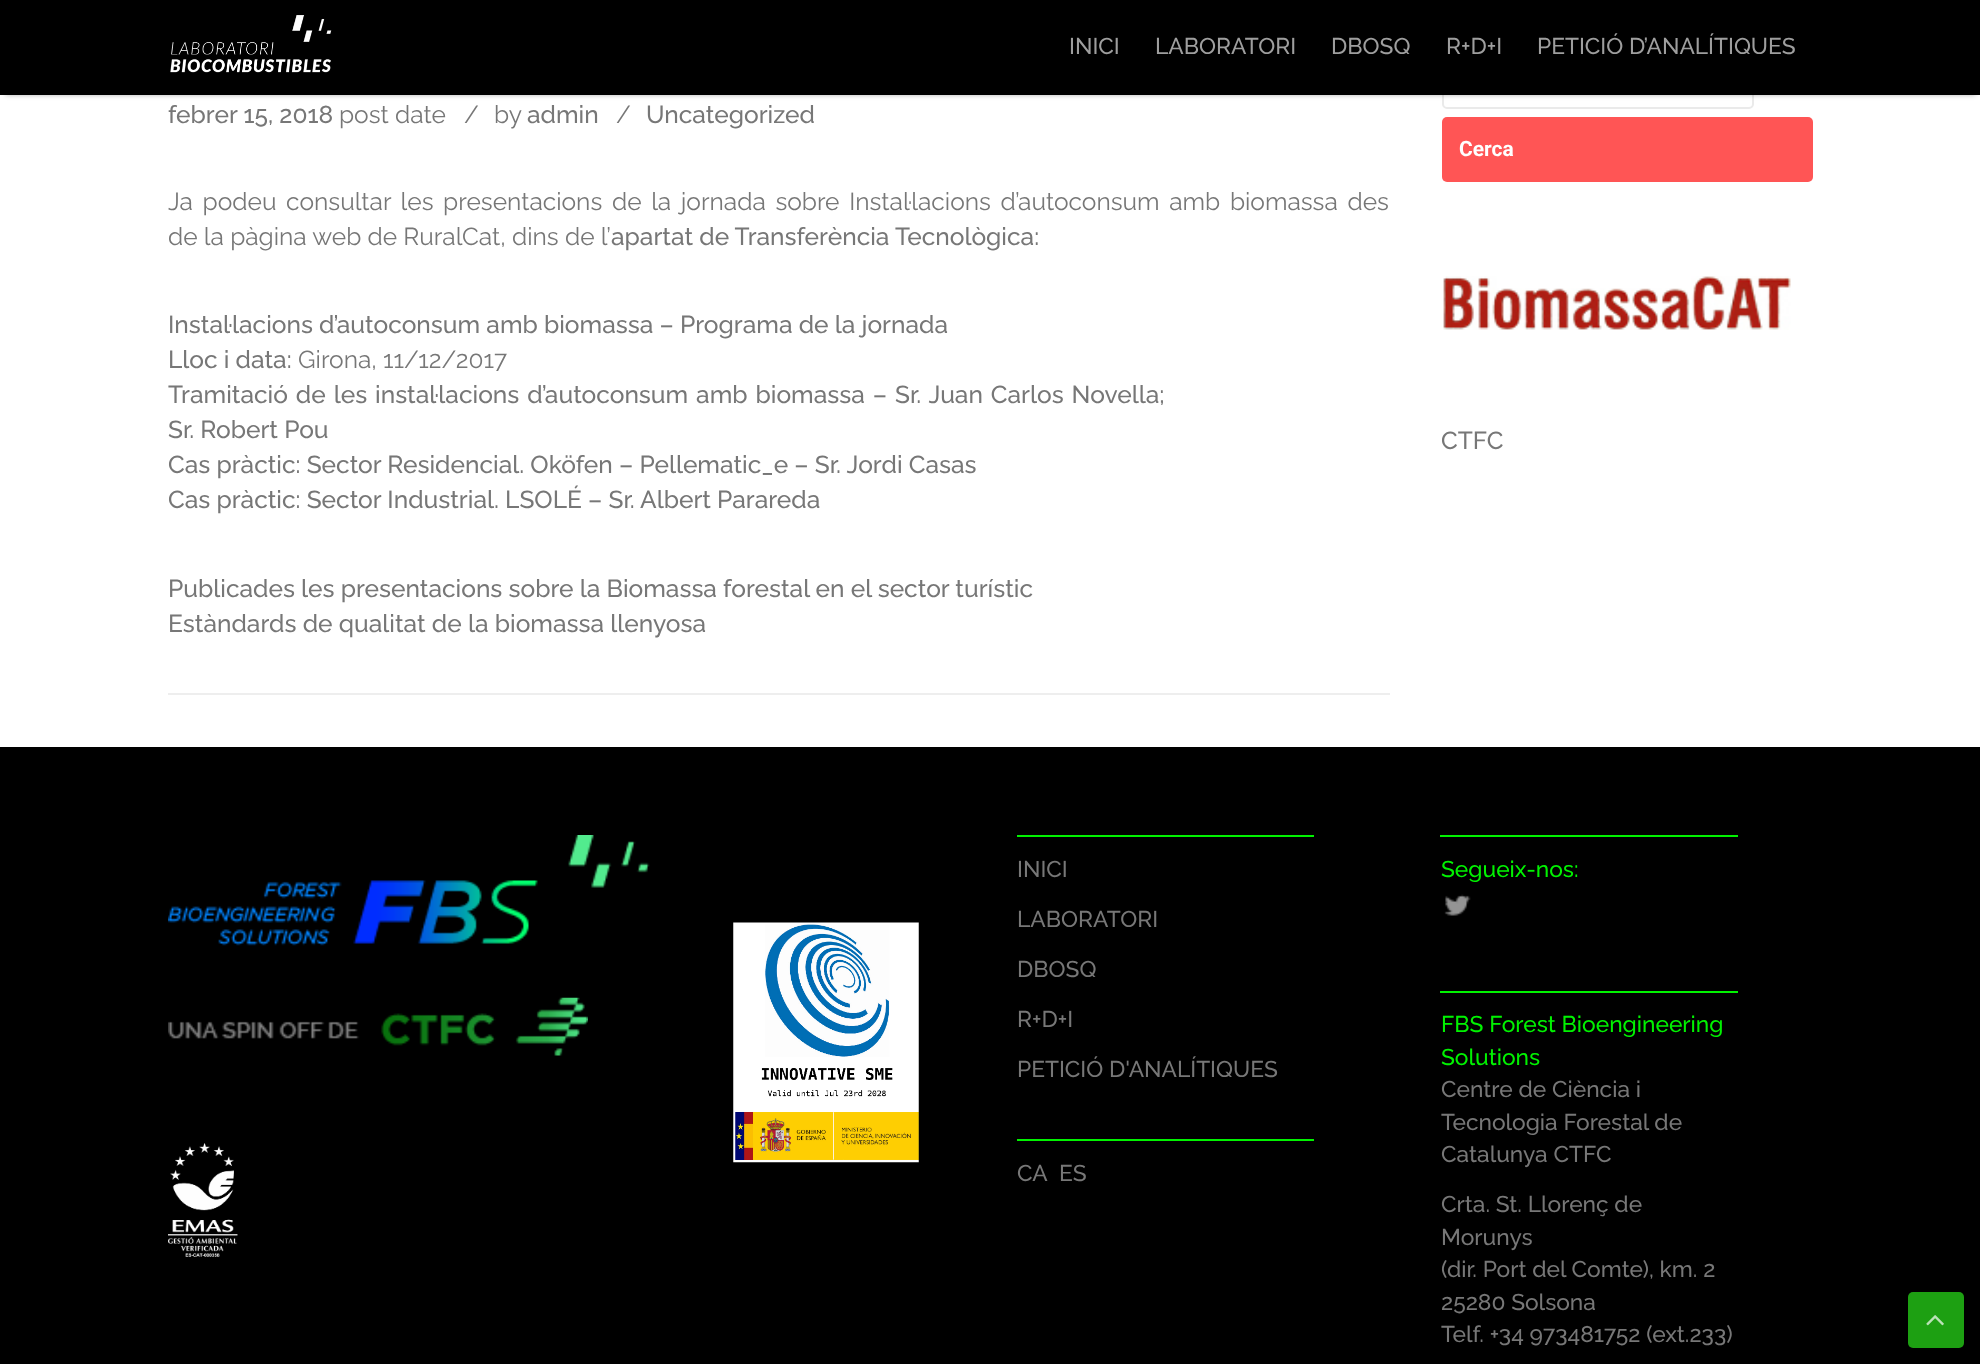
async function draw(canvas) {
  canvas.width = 1980
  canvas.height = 1364
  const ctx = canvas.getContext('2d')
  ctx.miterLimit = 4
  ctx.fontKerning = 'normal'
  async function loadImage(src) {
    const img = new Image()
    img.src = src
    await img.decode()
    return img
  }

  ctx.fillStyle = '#fff'
  ctx.fillRect(0, 0, 1980, 1364)
  ctx.beginPath()
  ctx.roundRect(1443, 45, 310, 63, 4)
  ctx.strokeStyle = '#eaeaea'
  ctx.lineWidth = 2
  ctx.stroke()
  ctx.fillStyle = '#0000004d'
  ctx.filter = 'blur(2.5px)'
  ctx.beginPath()
  ctx.rect(5, 11, 1971, 84)
  ctx.fill()
  ctx.filter = 'none'
  ctx.fillStyle = '#000'
  ctx.fillRect(0, 0, 1980, 95)
  ctx.drawImage(await loadImage('image0.png'), 170, 15, 162, 58)
  ctx.font = '500 22.75px Raleway'
  ctx.fillStyle = '#9e9e9e'
  ctx.fillText('INICI', 1069, 54)
  ctx.fillText('LABORATORI', 1155, 54)
  ctx.fillText('DBOSQ', 1331, 54)
  ctx.fillText('R+D+I', 1446, 54)
  ctx.fillText('PETICIÓ D’ANALÍTIQUES', 1537, 54)
  ctx.fillStyle = '#eee'
  ctx.fillRect(168, 693, 1222, 2)
  ctx.font = '500 24.5px Raleway'
  ctx.fillStyle = '#777'
  ctx.fillText('febrer 15, 2018', 168, 123)
  ctx.font = '24.5px Raleway'
  ctx.fillText('post date', 339, 123)
  ctx.fillText('/', 464, 123)
  ctx.fillText('by', 494, 123)
  ctx.font = '500 24.5px Raleway'
  ctx.fillText('admin', 527, 123)
  ctx.font = '24.5px Raleway'
  ctx.fillText('/', 616, 123)
  ctx.font = '500 24.5px Raleway'
  ctx.fillText('Uncategorized', 646, 123)
  ctx.wordSpacing = '3.4px'
  ctx.font = '24.5px Raleway'
  ctx.fillText('Ja podeu consultar les presentacions de la jornada sobre Instal·lacions d’autoconsum amb biomassa des', 168, 210)
  ctx.wordSpacing = '0px'
  ctx.fillText('de la pàgina web de RuralCat, dins de l’', 168, 245)
  ctx.font = '500 24.5px Raleway'
  ctx.fillText('apartat de Transferència Tecnològica:', 611, 245)
  ctx.fillText('Instal·lacions d’autoconsum amb biomassa –', 168, 333)
  ctx.fillText('Programa de la jornada', 680, 333)
  ctx.fillText('Lloc i data:', 168, 368)
  ctx.font = '24.5px Raleway'
  ctx.fillText('Girona, 11/12/2017', 298, 368)
  ctx.wordSpacing = '1.75px'
  ctx.font = '500 24.5px Raleway'
  ctx.fillText('Tramitació de les instal·lacions d’autoconsum amb biomassa – Sr. Juan Carlos Novella;', 168, 403)
  ctx.wordSpacing = '0px'
  ctx.fillText('Sr. Robert Pou', 168, 438)
  ctx.fillText('Cas pràctic: Sector Residencial. Oköfen – Pellematic_e – Sr. Jordi Casas', 168, 473)
  ctx.fillText('Cas pràctic: Sector Industrial. LSOLÉ – Sr. Albert Parareda', 168, 508)
  ctx.fillText('Publicades les presentacions sobre la Biomassa forestal en el sector turístic', 168, 597)
  ctx.fillText('Estàndards de qualitat de la biomassa llenyosa', 168, 632)
  ctx.fillStyle = '#f55'
  ctx.beginPath()
  ctx.roundRect(1442, 117, 371, 65, 5)
  ctx.fill()
  ctx.font = 'bold 21px Roboto'
  ctx.fillStyle = '#fff'
  ctx.fillText('Cerca', 1459, 156)
  ctx.drawImage(await loadImage('image1.png'), 1443, 276, 348, 54)
  ctx.font = '500 24.5px Raleway'
  ctx.fillStyle = '#777'
  ctx.fillText('CTFC', 1441, 449)
  ctx.fillStyle = '#000'
  ctx.fillRect(0, 747, 1980, 617)
  ctx.drawImage(await loadImage('image2.png'), 168, 835, 482, 111)
  ctx.drawImage(await loadImage('image3.png'), 168, 997, 420, 59)
  ctx.drawImage(await loadImage('image4.png'), 168, 1143, 70, 114)
  ctx.drawImage(await loadImage('image5.png'), 733, 922, 186, 241)
  ctx.fillStyle = '#00f200'
  ctx.fillRect(1017, 835, 297, 2)
  ctx.font = '500 22.75px Raleway'
  ctx.fillStyle = '#777'
  ctx.fillText('INICI', 1017, 877)
  ctx.fillText('LABORATORI', 1017, 927)
  ctx.fillText('DBOSQ', 1017, 977)
  ctx.fillText('R+D+I', 1017, 1027)
  ctx.fillText('PETICIÓ D\'ANALÍTIQUES', 1017, 1077)
  ctx.fillStyle = '#00f200'
  ctx.fillRect(1017, 1139, 297, 2)
  ctx.fillStyle = '#777'
  ctx.fillText('CA', 1017, 1181)
  ctx.fillText('ES', 1059, 1181)
  ctx.fillStyle = '#00f200'
  ctx.fillRect(1440, 835, 298, 2)
  ctx.fillText('Segueix-nos:', 1441, 877)
  ctx.drawImage(await loadImage('image6.png'), 1444, 894, 27, 22)
  ctx.fillRect(1440, 991, 298, 2)
  ctx.fillText('FBS Forest Bioengineering', 1441, 1032)
  ctx.fillText('Solutions', 1441, 1065)
  ctx.fillStyle = '#777'
  ctx.fillText('Centre de Ciència i', 1441, 1097)
  ctx.fillText('Tecnologia Forestal de', 1441, 1130)
  ctx.fillText('Catalunya CTFC', 1441, 1162)
  ctx.fillText('Crta. St. Llorenç de', 1441, 1212)
  ctx.fillText('Morunys', 1441, 1245)
  ctx.fillText('(dir. Port del Comte), km. 2', 1441, 1277)
  ctx.fillText('25280 Solsona', 1441, 1310)
  ctx.fillText('Telf. +34 973481752 (ext.233)', 1441, 1342)
  ctx.fillStyle = '#1da012'
  ctx.beginPath()
  ctx.roundRect(1908, 1292, 56, 56, 5)
  ctx.fill()
  ctx.drawImage(await loadImage('image7.png'), 1926, 1315, 18, 11)
}

draw(document.querySelector('canvas'))
